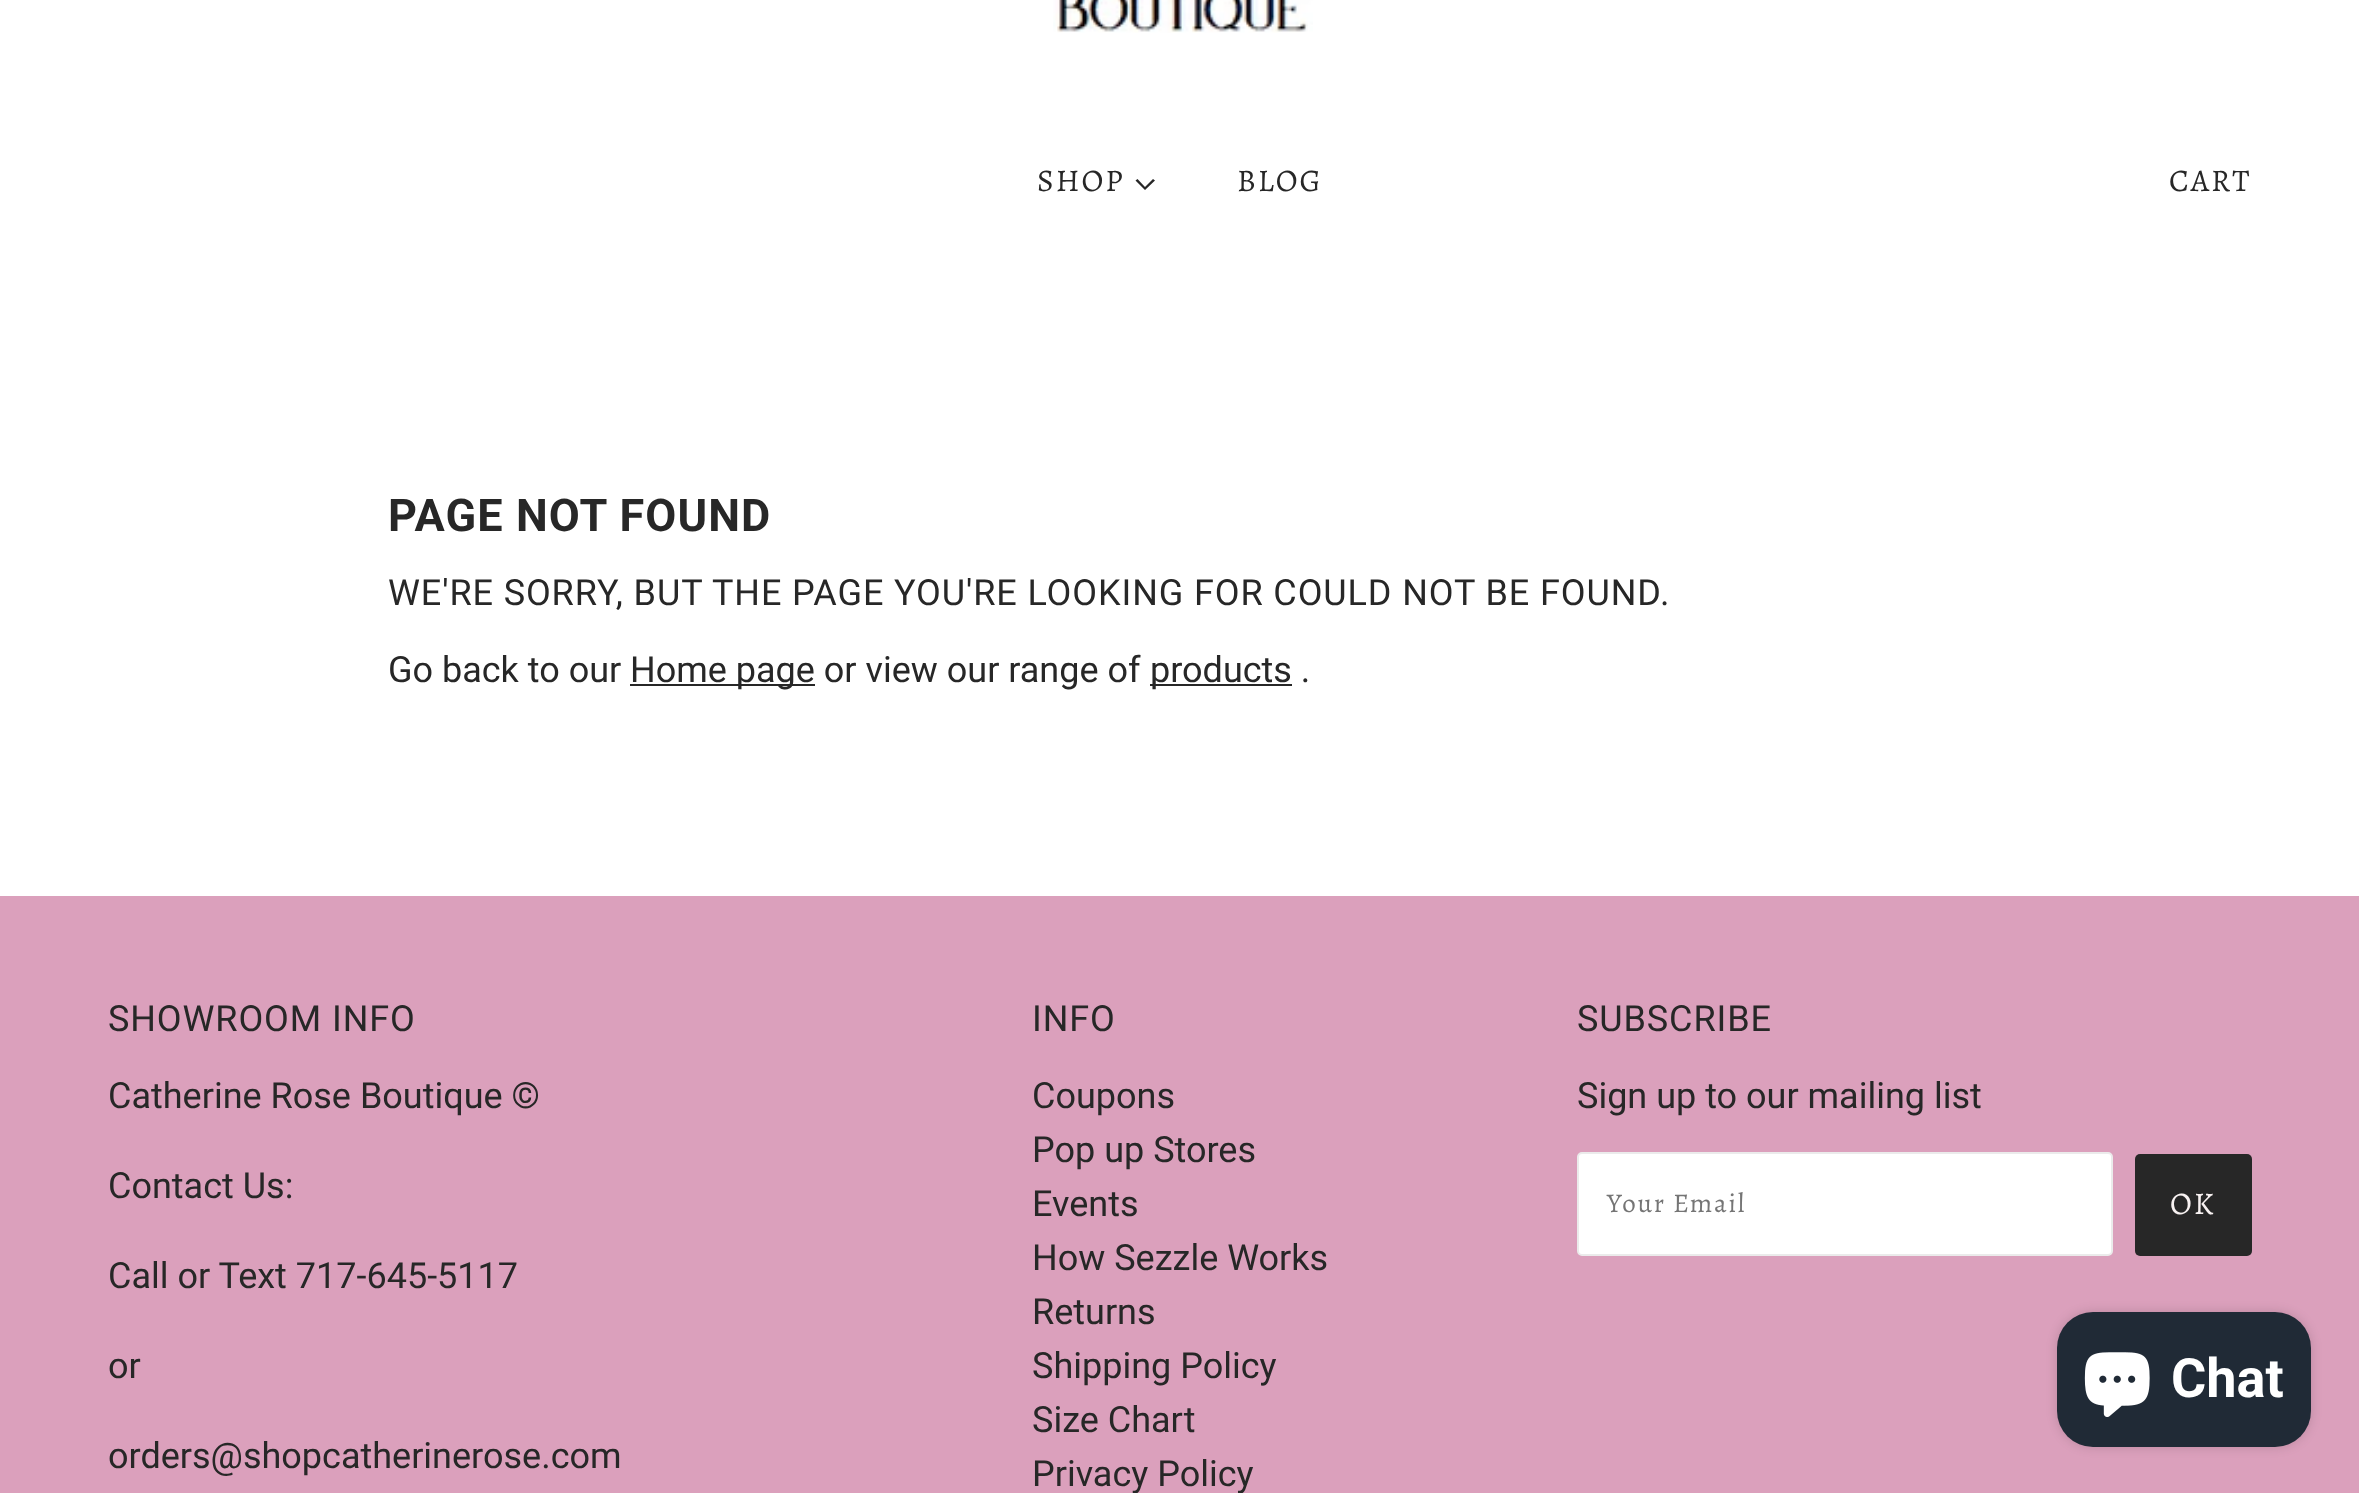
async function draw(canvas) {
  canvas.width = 2359
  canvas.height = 1493
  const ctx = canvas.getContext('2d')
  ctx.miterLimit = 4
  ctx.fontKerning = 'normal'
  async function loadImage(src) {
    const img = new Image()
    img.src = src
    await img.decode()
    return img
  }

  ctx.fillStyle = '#fff'
  ctx.fillRect(0, 0, 2359, 1493)
  ctx.drawImage(await loadImage('image0.png'), 1053, 0, 260, 33)
  ctx.letterSpacing = '2px'
  ctx.font = '31.5px Alegreya'
  ctx.fillStyle = '#272727'
  ctx.fillText('SHOP', 1037, 191)
  ctx.beginPath()
  ctx.moveTo(1145, 187)
  ctx.lineTo(1153, 179)
  ctx.lineTo(1155, 180.5)
  ctx.lineTo(1145, 190)
  ctx.lineTo(1135.5, 180.5)
  ctx.lineTo(1137.5, 179)
  ctx.closePath()
  ctx.fill()
  ctx.fillText('BLOG', 1237, 191)
  ctx.fillText('CART', 2169, 191)
  ctx.letterSpacing = '1.1px'
  ctx.font = 'bold 45px Roboto'
  ctx.fillText('PAGE NOT FOUND', 388, 531)
  ctx.letterSpacing = '0.9px'
  ctx.font = '36px Roboto'
  ctx.fillText('WE\'RE SORRY, BUT THE PAGE YOU\'RE LOOKING FOR COULD NOT BE FOUND.', 388, 605)
  ctx.letterSpacing = '0px'
  ctx.fillText('Go back to our', 388, 682)
  ctx.fillRect(630, 684, 185, 2)
  ctx.fillText('Home page or view our range of', 630, 682)
  ctx.fillRect(1150, 684, 142, 2)
  ctx.fillText('products .', 1150, 682)
  ctx.fillStyle = '#dba0bc'
  ctx.fillRect(0, 896, 2359, 597)
  ctx.letterSpacing = '0.9px'
  ctx.fillStyle = '#272727'
  ctx.fillText('SHOWROOM INFO', 108, 1031)
  ctx.letterSpacing = '0px'
  ctx.fillText('Catherine Rose Boutique ©', 108, 1108)
  ctx.fillText('Contact Us:', 108, 1198)
  ctx.fillText('Call or Text 717-645-5117', 108, 1288)
  ctx.fillText('or', 108, 1378)
  ctx.fillText('orders@shopcatherinerose.com', 108, 1468)
  ctx.letterSpacing = '0.9px'
  ctx.fillText('INFO', 1032, 1031)
  ctx.letterSpacing = '0px'
  ctx.fillText('Coupons', 1032, 1108)
  ctx.fillText('Pop up Stores', 1032, 1162)
  ctx.fillText('Events', 1032, 1216)
  ctx.fillText('How Sezzle Works', 1032, 1270)
  ctx.fillText('Returns', 1032, 1324)
  ctx.fillText('Shipping Policy', 1032, 1378)
  ctx.fillText('Size Chart', 1032, 1432)
  ctx.fillText('Privacy Policy', 1032, 1486)
  ctx.letterSpacing = '0.9px'
  ctx.fillText('SUBSCRIBE', 1577, 1031)
  ctx.letterSpacing = '0px'
  ctx.fillText('Sign up to our mailing list', 1577, 1108)
  ctx.fillStyle = '#fff'
  ctx.beginPath()
  ctx.roundRect(1578, 1153, 534, 102, 4)
  ctx.fill()
  ctx.strokeStyle = '#ebebeb'
  ctx.lineWidth = 2
  ctx.stroke()
  ctx.letterSpacing = '1.75px'
  ctx.font = '27px Alegreya'
  ctx.fillStyle = '#757575'
  ctx.fillText('Your Email', 1607, 1212)
  ctx.fillStyle = '#272727'
  ctx.beginPath()
  ctx.roundRect(2135, 1154, 117, 102, 5)
  ctx.fill()
  ctx.letterSpacing = '2px'
  ctx.font = '31.5px Alegreya'
  ctx.fillStyle = '#f8f2f2'
  ctx.fillText('OK', 2170, 1214)
  ctx.fillStyle = '#00000026'
  ctx.filter = 'blur(5.5px)'
  ctx.beginPath()
  ctx.roundRect(2057, 1312, 254, 135, 36)
  ctx.fill()
  ctx.filter = 'none'
  ctx.fillStyle = '#202a36'
  ctx.beginPath()
  ctx.roundRect(2057, 1312, 254, 135, 36)
  ctx.fill()
  ctx.drawImage(await loadImage('image1.png'), 2084, 1352, 66, 65)
  ctx.letterSpacing = '0px'
  ctx.font = 'bold 54px Roboto'
  ctx.fillStyle = '#fff'
  ctx.fillText('Chat', 2171, 1397)
}

draw(document.querySelector('canvas'))
